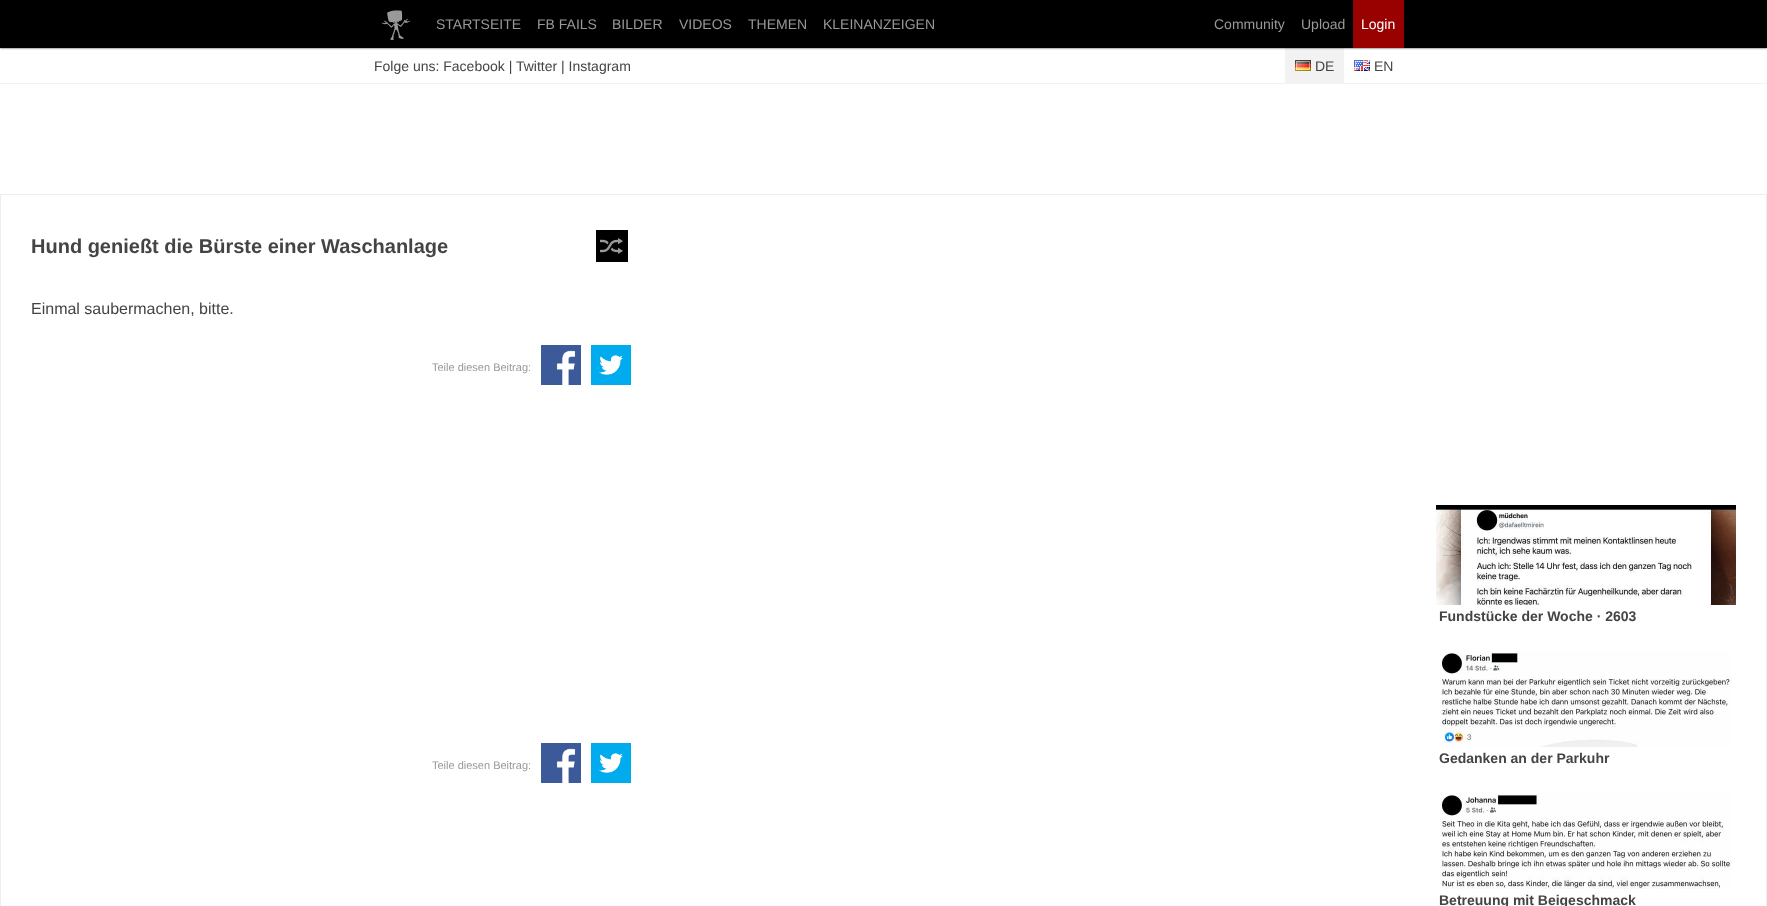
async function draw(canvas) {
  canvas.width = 1767
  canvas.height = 906
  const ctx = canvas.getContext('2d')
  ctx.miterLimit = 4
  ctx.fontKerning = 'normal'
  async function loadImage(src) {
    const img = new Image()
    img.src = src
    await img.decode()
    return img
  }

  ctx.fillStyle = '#fff'
  ctx.fillRect(0, 0, 1767, 906)
  ctx.fillStyle = '#f2f2f2'
  ctx.fillRect(1285, 48, 59, 35)
  ctx.fillStyle = '#000000cc'
  ctx.filter = 'blur(1px)'
  ctx.beginPath()
  ctx.rect(0, 0, 1767, 48)
  ctx.fill()
  ctx.filter = 'none'
  ctx.fillStyle = '#000'
  ctx.fillRect(0, 0, 1767, 48)
  ctx.drawImage(await loadImage('image0.png'), 381, 10, 30, 30)
  ctx.font = '14px Liberation Sans'
  ctx.fillStyle = '#999'
  ctx.fillText('STARTSEITE', 436, 29)
  ctx.fillText('FB FAILS', 537, 29)
  ctx.fillText('BILDER', 612, 29)
  ctx.fillText('VIDEOS', 679, 29)
  ctx.fillText('THEMEN', 748, 29)
  ctx.fillText('KLEINANZEIGEN', 823, 29)
  ctx.fillText('Community', 1214, 29)
  ctx.fillText('Upload', 1301, 29)
  ctx.fillStyle = '#900'
  ctx.fillRect(1353, 0, 51, 48)
  ctx.fillStyle = '#fff'
  ctx.fillText('Login', 1361, 29)
  ctx.fillStyle = '#f2f2f2'
  ctx.fillRect(0, 83, 1767, 1)
  ctx.fillStyle = '#444'
  ctx.fillText('Folge uns: Facebook | Twitter | Instagram', 374, 71)
  ctx.drawImage(await loadImage('image1.png'), 1295, 60, 16, 11)
  ctx.fillText('DE', 1315, 71)
  ctx.drawImage(await loadImage('image2.png'), 1354, 60, 16, 11)
  ctx.fillText('EN', 1374, 71)
  ctx.strokeStyle = '#eee'
  ctx.strokeRect(0.5, 194.5, 1766, 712)
  ctx.font = 'bold 20px Liberation Sans'
  ctx.fillText('Hund genießt die Bürste einer Waschanlage', 31, 253)
  ctx.fillStyle = '#000'
  ctx.fillRect(596, 230, 32, 32)
  ctx.drawImage(await loadImage('image3.png'), 600, 238, 23, 16)
  ctx.font = '16px Liberation Sans'
  ctx.fillStyle = '#444'
  ctx.fillText('Einmal saubermachen, bitte.', 31, 314)
  ctx.font = '11px Liberation Sans'
  ctx.fillStyle = '#999'
  ctx.fillText('Teile diesen Beitrag:', 432, 371)
  ctx.drawImage(await loadImage('image4.png'), 541, 345, 40, 40)
  ctx.drawImage(await loadImage('image5.png'), 591, 345, 40, 40)
  ctx.fillText('Teile diesen Beitrag:', 432, 769)
  ctx.drawImage(await loadImage('image4.png'), 541, 743, 40, 40)
  ctx.drawImage(await loadImage('image6.png'), 591, 743, 40, 40)
  ctx.drawImage(await loadImage('image7.png'), 1436, 505, 300, 100)
  ctx.font = 'bold 14px Liberation Sans'
  ctx.fillStyle = '#444'
  ctx.fillText('Fundstücke der Woche · 2603', 1439, 621)
  ctx.drawImage(await loadImage('image8.png'), 1440, 651, 292, 96)
  ctx.fillText('Gedanken an der Parkuhr', 1439, 763)
  ctx.drawImage(await loadImage('image9.png'), 1440, 793, 292, 96)
  ctx.fillText('Betreuung mit Beigeschmack', 1439, 905)
}

draw(document.querySelector('canvas'))
